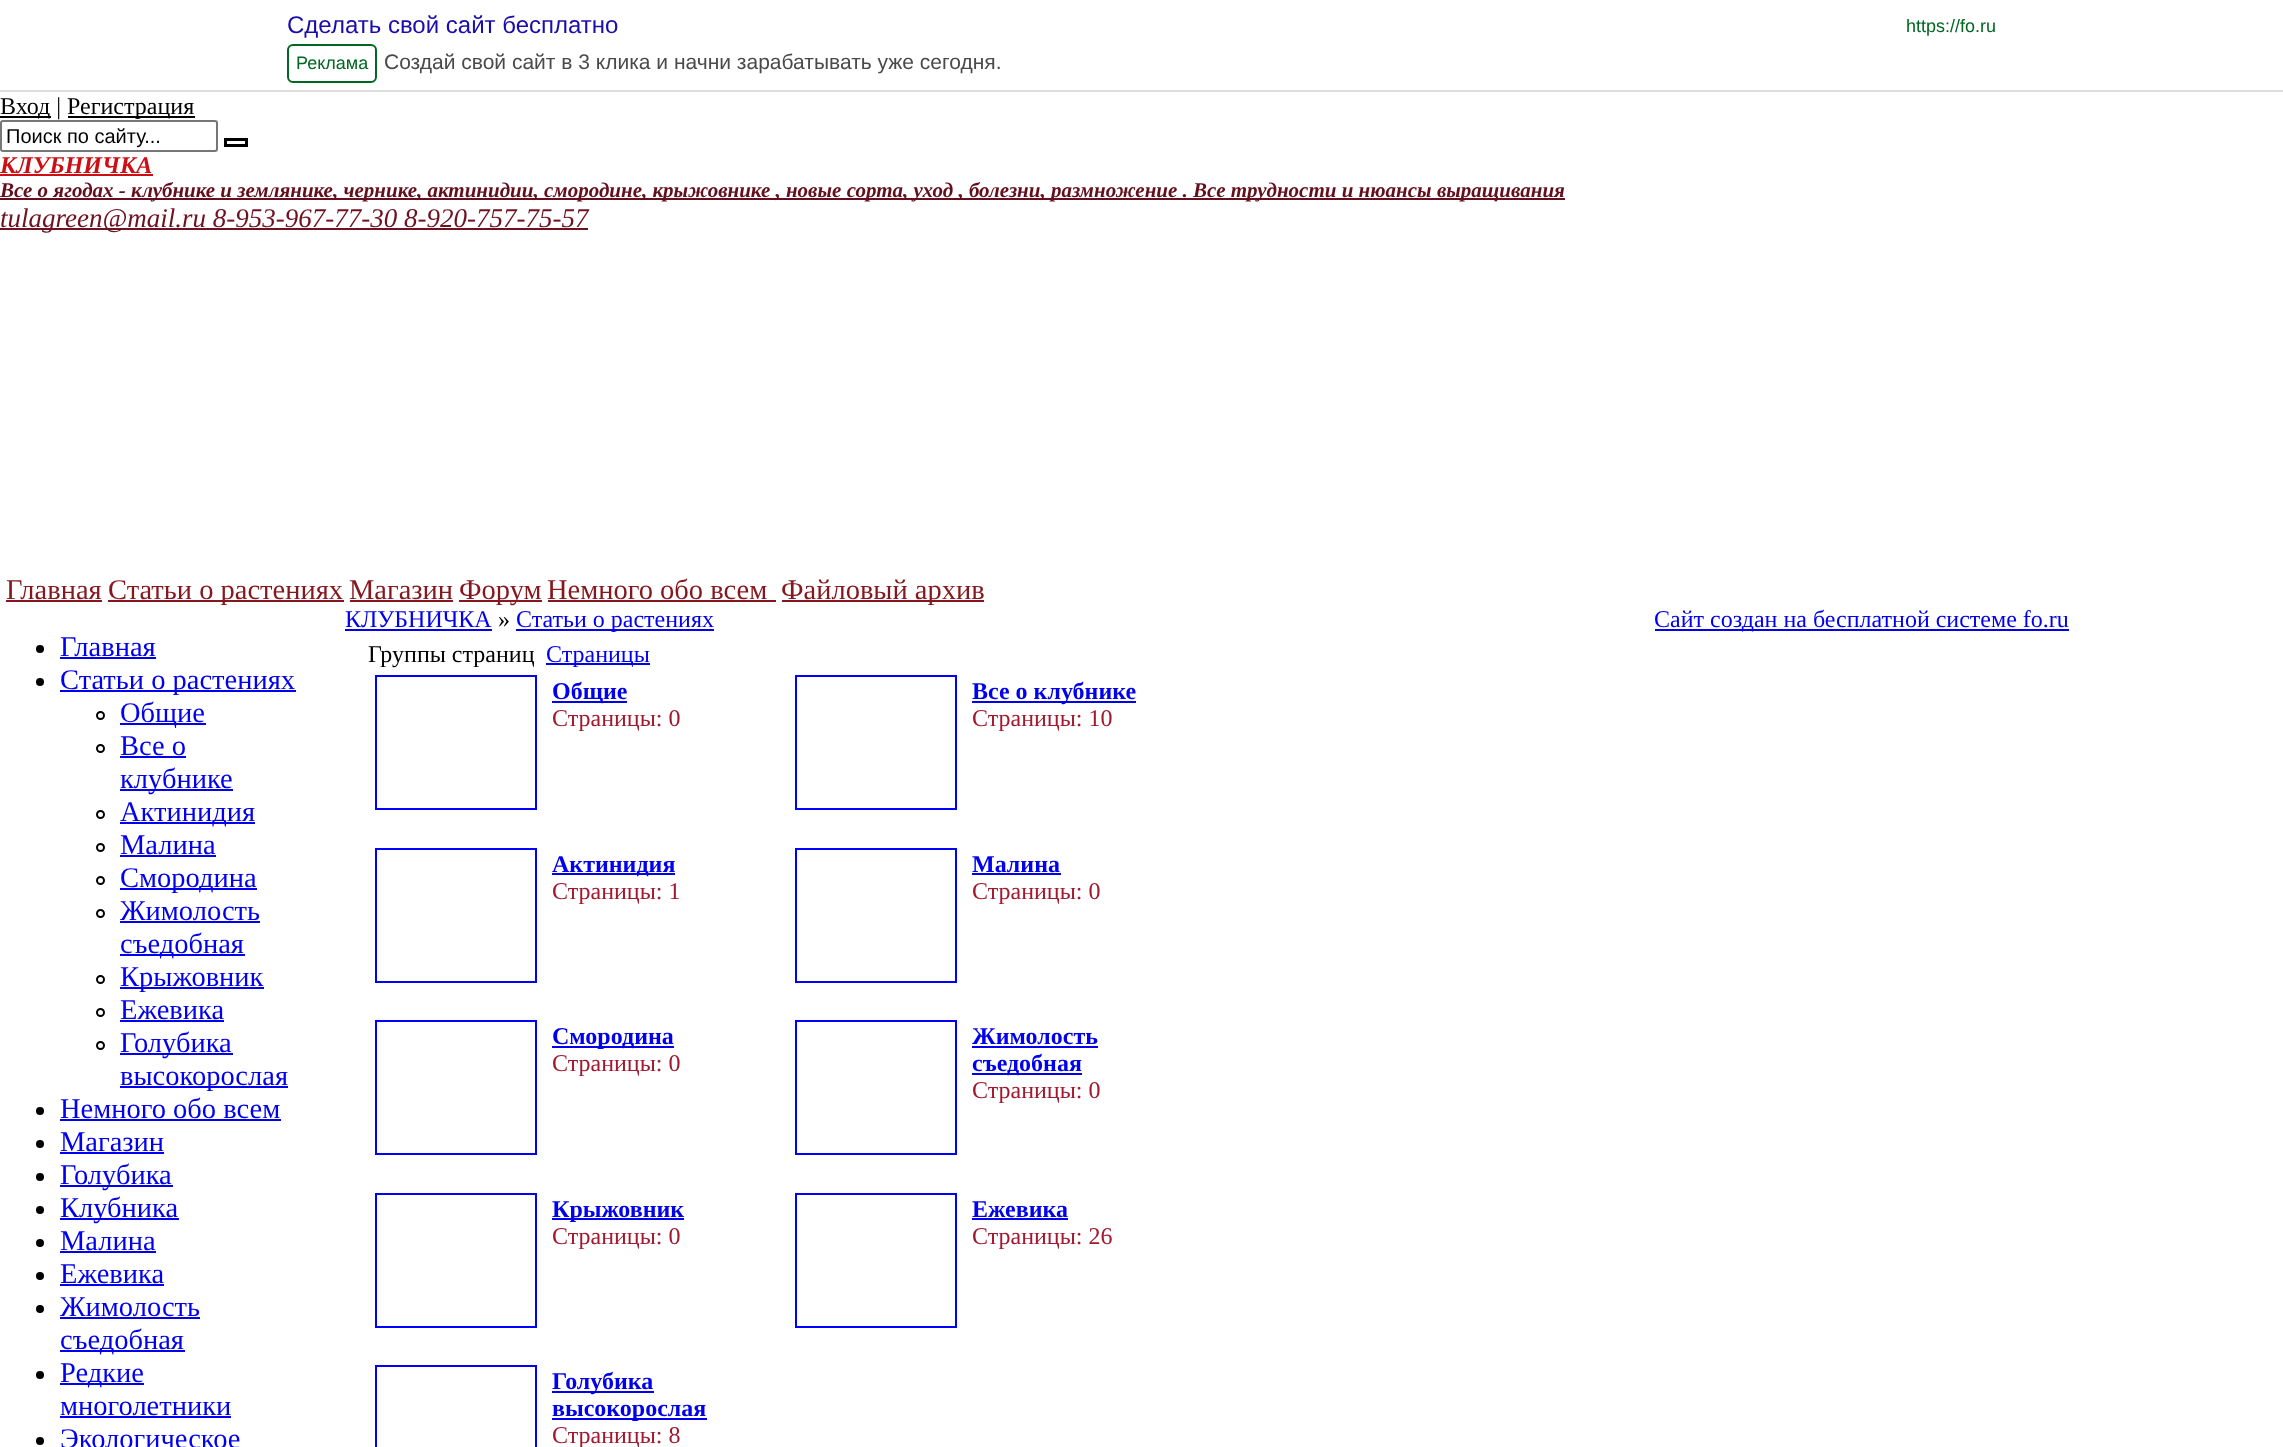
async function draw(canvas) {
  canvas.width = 2283
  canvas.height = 1447
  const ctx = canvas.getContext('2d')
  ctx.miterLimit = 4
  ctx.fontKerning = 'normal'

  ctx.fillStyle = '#fff'
  ctx.fillRect(0, 0, 2283, 1447)
  ctx.fillStyle = '#ddd'
  ctx.fillRect(0, 90, 2283, 2)
  ctx.font = '24px Liberation Sans'
  ctx.fillStyle = '#1a0dab'
  ctx.fillText('Сделать свой сайт бесплатно', 287, 33)
  ctx.font = '18px Liberation Sans'
  ctx.fillStyle = '#006621'
  ctx.fillText('https://fo.ru', 1906, 32)
  ctx.beginPath()
  ctx.roundRect(288, 45, 88, 37, 5)
  ctx.strokeStyle = '#006621'
  ctx.lineWidth = 2
  ctx.stroke()
  ctx.fillText('Реклама', 296, 69)
  ctx.font = '21px Liberation Sans'
  ctx.fillStyle = '#4a4a4a'
  ctx.fillText('Создай свой сайт в 3 клика и начни зарабатывать уже сегодня.', 384, 69)
  ctx.fillStyle = '#000'
  ctx.fillRect(0, 116, 51, 2)
  ctx.font = '24px Liberation Serif'
  ctx.fillText('Вход |', 0, 114)
  ctx.fillRect(68, 116, 127, 2)
  ctx.fillText('Регистрация', 67, 114)
  ctx.beginPath()
  ctx.roundRect(1, 121, 216, 30, 2)
  ctx.strokeStyle = '#767676'
  ctx.stroke()
  ctx.font = '20px Liberation Sans'
  ctx.fillText('Поиск по сайту...', 6, 143)
  ctx.strokeStyle = '#000'
  ctx.lineWidth = 3
  ctx.strokeRect(225.5, 139.5, 21, 6)
  ctx.font = 'italic bold 24px Liberation Serif'
  ctx.fillStyle = '#cc0e15'
  ctx.fillText('КЛУБНИЧКА', 0, 173)
  ctx.fillRect(0, 174, 153, 2)
  ctx.fillStyle = '#630f1d'
  ctx.fillRect(0, 198, 1565, 2)
  ctx.font = 'italic bold 21px Liberation Serif'
  ctx.fillText('Все о ягодах - клубнике и землянике, чернике, актинидии, смородине, крыжовнике , новые сорта, уход , болезни, размножение . Все трудности и нюансы выращивания', 0, 197)
  ctx.fillStyle = '#6e1120'
  ctx.fillRect(0, 228, 588, 2)
  ctx.font = 'italic 27px Liberation Serif'
  ctx.fillText('tulagreen@mail.ru 8-953-967-77-30 8-920-757-75-57', 0, 227)
  ctx.font = '28.5px Liberation Serif'
  ctx.fillStyle = '#85171e'
  ctx.fillText('Главная', 6, 599)
  ctx.fillRect(6, 600, 96, 2)
  ctx.fillRect(108, 600, 236, 2)
  ctx.fillText('Статьи о растениях', 108, 599)
  ctx.fillText('Магазин', 349, 599)
  ctx.fillRect(350, 600, 103, 2)
  ctx.fillRect(459, 600, 83, 2)
  ctx.fillText('Форум', 459, 599)
  ctx.fillText('Немного обо всем', 547, 599)
  ctx.fillRect(782, 600, 202, 2)
  ctx.fillText('Файловый архив', 781, 599)
  ctx.fillRect(548, 600, 228, 2)
  ctx.fillStyle = '#000'
  ctx.beginPath()
  ctx.arc(40, 649, 4, 0, 2 * Math.PI)
  ctx.fill()
  ctx.fillStyle = '#00e'
  ctx.fillText('Главная', 60, 656)
  ctx.fillRect(60, 657, 96, 2)
  ctx.fillStyle = '#000'
  ctx.beginPath()
  ctx.arc(40, 682, 4, 0, 2 * Math.PI)
  ctx.fill()
  ctx.fillStyle = '#00e'
  ctx.fillRect(60, 690, 236, 2)
  ctx.fillText('Статьи о растениях', 60, 689)
  ctx.beginPath()
  ctx.arc(100.5, 715.5, 3.5, 0, 2 * Math.PI)
  ctx.lineWidth = 2
  ctx.stroke()
  ctx.fillRect(120, 723, 86, 2)
  ctx.fillText('Общие', 120, 722)
  ctx.beginPath()
  ctx.arc(100.5, 748.5, 3.5, 0, 2 * Math.PI)
  ctx.stroke()
  ctx.fillText('Все о', 120, 755)
  ctx.fillRect(120, 756, 66, 2)
  ctx.fillRect(120, 789, 113, 2)
  ctx.fillText('клубнике', 120, 788)
  ctx.beginPath()
  ctx.arc(100.5, 814.5, 3.5, 0, 2 * Math.PI)
  ctx.stroke()
  ctx.fillRect(120, 822, 135, 2)
  ctx.fillText('Актинидия', 120, 821)
  ctx.beginPath()
  ctx.arc(100.5, 847.5, 3.5, 0, 2 * Math.PI)
  ctx.stroke()
  ctx.fillText('Малина', 120, 854)
  ctx.fillRect(120, 855, 96, 2)
  ctx.beginPath()
  ctx.arc(100.5, 880.5, 3.5, 0, 2 * Math.PI)
  ctx.stroke()
  ctx.fillRect(120, 888, 137, 2)
  ctx.fillText('Смородина', 120, 887)
  ctx.beginPath()
  ctx.arc(100.5, 913.5, 3.5, 0, 2 * Math.PI)
  ctx.stroke()
  ctx.fillText('Жимолость', 120, 920)
  ctx.fillRect(120, 921, 140, 2)
  ctx.fillRect(120, 954, 125, 2)
  ctx.fillText('съедобная', 120, 953)
  ctx.beginPath()
  ctx.arc(100.5, 979.5, 3.5, 0, 2 * Math.PI)
  ctx.stroke()
  ctx.fillRect(120, 987, 144, 2)
  ctx.fillText('Крыжовник', 120, 986)
  ctx.beginPath()
  ctx.arc(100.5, 1012.5, 3.5, 0, 2 * Math.PI)
  ctx.stroke()
  ctx.fillText('Ежевика', 120, 1019)
  ctx.fillRect(120, 1020, 104, 2)
  ctx.beginPath()
  ctx.arc(100.5, 1045.5, 3.5, 0, 2 * Math.PI)
  ctx.stroke()
  ctx.fillRect(120, 1053, 113, 2)
  ctx.fillText('Голубика', 120, 1052)
  ctx.fillRect(120, 1086, 168, 2)
  ctx.fillText('высокорослая', 120, 1085)
  ctx.fillStyle = '#000'
  ctx.beginPath()
  ctx.arc(40, 1111, 4, 0, 2 * Math.PI)
  ctx.fill()
  ctx.fillStyle = '#00e'
  ctx.fillText('Немного обо всем', 60, 1118)
  ctx.fillRect(60, 1119, 221, 2)
  ctx.fillStyle = '#000'
  ctx.beginPath()
  ctx.arc(40, 1144, 4, 0, 2 * Math.PI)
  ctx.fill()
  ctx.fillStyle = '#00e'
  ctx.fillText('Магазин', 60, 1151)
  ctx.fillRect(60, 1152, 104, 2)
  ctx.fillStyle = '#000'
  ctx.beginPath()
  ctx.arc(40, 1177, 4, 0, 2 * Math.PI)
  ctx.fill()
  ctx.fillStyle = '#00e'
  ctx.fillRect(60, 1185, 113, 2)
  ctx.fillText('Голубика', 60, 1184)
  ctx.fillStyle = '#000'
  ctx.beginPath()
  ctx.arc(40, 1210, 4, 0, 2 * Math.PI)
  ctx.fill()
  ctx.fillStyle = '#00e'
  ctx.fillRect(60, 1218, 119, 2)
  ctx.fillText('Клубника', 60, 1217)
  ctx.fillStyle = '#000'
  ctx.beginPath()
  ctx.arc(40, 1243, 4, 0, 2 * Math.PI)
  ctx.fill()
  ctx.fillStyle = '#00e'
  ctx.fillText('Малина', 60, 1250)
  ctx.fillRect(60, 1251, 96, 2)
  ctx.fillStyle = '#000'
  ctx.beginPath()
  ctx.arc(40, 1276, 4, 0, 2 * Math.PI)
  ctx.fill()
  ctx.fillStyle = '#00e'
  ctx.fillText('Ежевика', 60, 1283)
  ctx.fillRect(60, 1284, 104, 2)
  ctx.fillStyle = '#000'
  ctx.beginPath()
  ctx.arc(40, 1309, 4, 0, 2 * Math.PI)
  ctx.fill()
  ctx.fillStyle = '#00e'
  ctx.fillText('Жимолость', 60, 1316)
  ctx.fillRect(60, 1317, 140, 2)
  ctx.fillRect(60, 1350, 125, 2)
  ctx.fillText('съедобная', 60, 1349)
  ctx.fillStyle = '#000'
  ctx.beginPath()
  ctx.arc(40, 1375, 4, 0, 2 * Math.PI)
  ctx.fill()
  ctx.fillStyle = '#00e'
  ctx.fillRect(60, 1383, 84, 2)
  ctx.fillText('Редкие', 60, 1382)
  ctx.fillText('многолетники', 60, 1415)
  ctx.fillRect(60, 1416, 171, 2)
  ctx.fillStyle = '#000'
  ctx.beginPath()
  ctx.arc(40, 1441, 4, 0, 2 * Math.PI)
  ctx.fill()
  ctx.fillStyle = '#00e'
  ctx.fillText('Экологическое', 60, 1448)
  ctx.font = '24px Liberation Serif'
  ctx.fillText('КЛУБНИЧКА', 345, 627)
  ctx.fillRect(345, 629, 147, 2)
  ctx.fillStyle = '#000'
  ctx.fillText('»', 498, 627)
  ctx.fillStyle = '#00e'
  ctx.fillRect(516, 629, 198, 2)
  ctx.fillText('Статьи о растениях', 516, 627)
  ctx.fillStyle = '#000'
  ctx.fillText('Группы страниц', 368, 662)
  ctx.fillStyle = '#00e'
  ctx.fillRect(546, 663, 104, 2)
  ctx.fillText('Страницы', 546, 662)
  ctx.strokeStyle = '#00f'
  ctx.strokeRect(376, 676, 160, 133)
  ctx.fillRect(552, 701, 75, 2)
  ctx.font = 'bold 24px Liberation Serif'
  ctx.fillText('Общие', 552, 699)
  ctx.font = '24px Liberation Serif'
  ctx.fillStyle = '#a1192f'
  ctx.fillText('Страницы: 0', 552, 726)
  ctx.strokeRect(796, 676, 160, 133)
  ctx.fillStyle = '#00e'
  ctx.fillRect(972, 701, 164, 2)
  ctx.font = 'bold 24px Liberation Serif'
  ctx.fillText('Все о клубнике', 972, 699)
  ctx.font = '24px Liberation Serif'
  ctx.fillStyle = '#a1192f'
  ctx.fillText('Страницы: 10', 972, 726)
  ctx.strokeRect(376, 849, 160, 133)
  ctx.fillStyle = '#00e'
  ctx.fillRect(552, 873, 123, 2)
  ctx.font = 'bold 24px Liberation Serif'
  ctx.fillText('Актинидия', 552, 872)
  ctx.font = '24px Liberation Serif'
  ctx.fillStyle = '#a1192f'
  ctx.fillText('Страницы: 1', 552, 899)
  ctx.strokeRect(796, 849, 160, 133)
  ctx.font = 'bold 24px Liberation Serif'
  ctx.fillStyle = '#00e'
  ctx.fillText('Малина', 972, 872)
  ctx.fillRect(972, 873, 89, 2)
  ctx.font = '24px Liberation Serif'
  ctx.fillStyle = '#a1192f'
  ctx.fillText('Страницы: 0', 972, 899)
  ctx.strokeRect(376, 1021, 160, 133)
  ctx.fillStyle = '#00e'
  ctx.fillRect(552, 1046, 122, 2)
  ctx.font = 'bold 24px Liberation Serif'
  ctx.fillText('Смородина', 552, 1044)
  ctx.font = '24px Liberation Serif'
  ctx.fillStyle = '#a1192f'
  ctx.fillText('Страницы: 0', 552, 1071)
  ctx.strokeRect(796, 1021, 160, 133)
  ctx.font = 'bold 24px Liberation Serif'
  ctx.fillStyle = '#00e'
  ctx.fillText('Жимолость', 972, 1044)
  ctx.fillRect(972, 1046, 126, 2)
  ctx.fillRect(972, 1073, 110, 2)
  ctx.fillText('съедобная', 972, 1071)
  ctx.font = '24px Liberation Serif'
  ctx.fillStyle = '#a1192f'
  ctx.fillText('Страницы: 0', 972, 1098)
  ctx.strokeRect(376, 1194, 160, 133)
  ctx.fillStyle = '#00e'
  ctx.fillRect(552, 1218, 132, 2)
  ctx.font = 'bold 24px Liberation Serif'
  ctx.fillText('Крыжовник', 552, 1217)
  ctx.font = '24px Liberation Serif'
  ctx.fillStyle = '#a1192f'
  ctx.fillText('Страницы: 0', 552, 1244)
  ctx.strokeRect(796, 1194, 160, 133)
  ctx.font = 'bold 24px Liberation Serif'
  ctx.fillStyle = '#00e'
  ctx.fillText('Ежевика', 972, 1217)
  ctx.fillRect(972, 1218, 96, 2)
  ctx.font = '24px Liberation Serif'
  ctx.fillStyle = '#a1192f'
  ctx.fillText('Страницы: 26', 972, 1244)
  ctx.strokeRect(376, 1366, 160, 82)
  ctx.fillStyle = '#00e'
  ctx.fillRect(552, 1391, 102, 2)
  ctx.font = 'bold 24px Liberation Serif'
  ctx.fillText('Голубика', 552, 1389)
  ctx.fillRect(552, 1418, 155, 2)
  ctx.fillText('высокорослая', 552, 1416)
  ctx.font = '24px Liberation Serif'
  ctx.fillStyle = '#a1192f'
  ctx.fillText('Страницы: 8', 552, 1443)
  ctx.fillStyle = '#00e'
  ctx.fillRect(1655, 629, 414, 2)
  ctx.fillText('Сайт создан на бесплатной системе fo.ru', 1654, 627)
}

draw(document.querySelector('canvas'))
